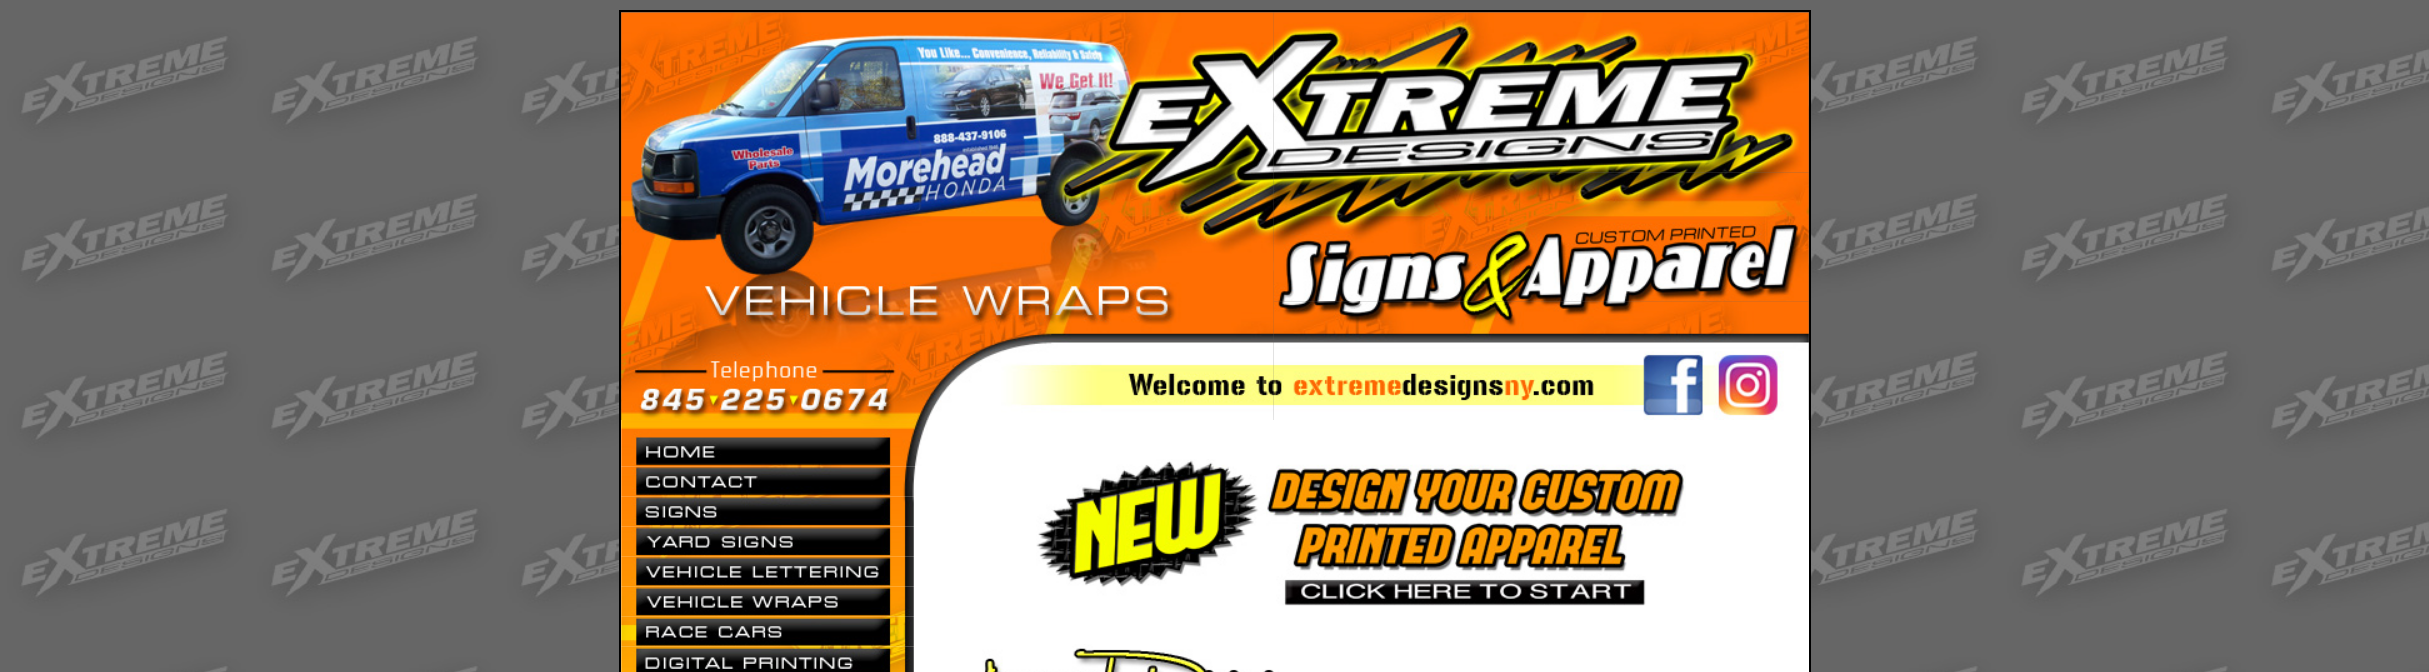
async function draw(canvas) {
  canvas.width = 2429
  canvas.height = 672
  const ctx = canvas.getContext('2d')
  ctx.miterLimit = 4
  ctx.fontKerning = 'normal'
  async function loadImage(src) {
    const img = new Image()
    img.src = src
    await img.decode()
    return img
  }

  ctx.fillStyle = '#fff'
  ctx.fillRect(0, 0, 2429, 672)
  ctx.drawImage(await loadImage('image0.png'), 0, 0, 2429, 672)
  ctx.strokeStyle = '#000'
  ctx.strokeRect(619.5, 10.5, 1191, 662)
  ctx.strokeRect(620.5, 11.5, 1189, 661)
  ctx.drawImage(await loadImage('image1.png'), 621, 12, 653, 408)
  ctx.drawImage(await loadImage('image2.png'), 1273, 12, 536, 161)
  ctx.drawImage(await loadImage('image3.png'), 1273, 172, 536, 130)
  ctx.drawImage(await loadImage('image4.png'), 1273, 301, 536, 119)
  ctx.fillRect(621, 420, 1188, 252)
  ctx.drawImage(await loadImage('image5.png'), 621, 420, 307, 47)
  ctx.drawImage(await loadImage('image6.png'), 621, 466, 295, 31)
  ctx.drawImage(await loadImage('image7.png'), 621, 496, 293, 31)
  ctx.drawImage(await loadImage('image8.png'), 621, 526, 293, 31)
  ctx.drawImage(await loadImage('image9.png'), 621, 556, 293, 31)
  ctx.drawImage(await loadImage('image10.png'), 621, 586, 293, 31)
  ctx.drawImage(await loadImage('image11.png'), 621, 616, 293, 31)
  ctx.drawImage(await loadImage('image12.png'), 621, 646, 293, 26)
  ctx.drawImage(await loadImage('image13.png'), 1036, 459, 650, 147)
  ctx.drawImage(await loadImage('image14.png'), 982, 644, 297, 28)
}

draw(document.querySelector('canvas'))
